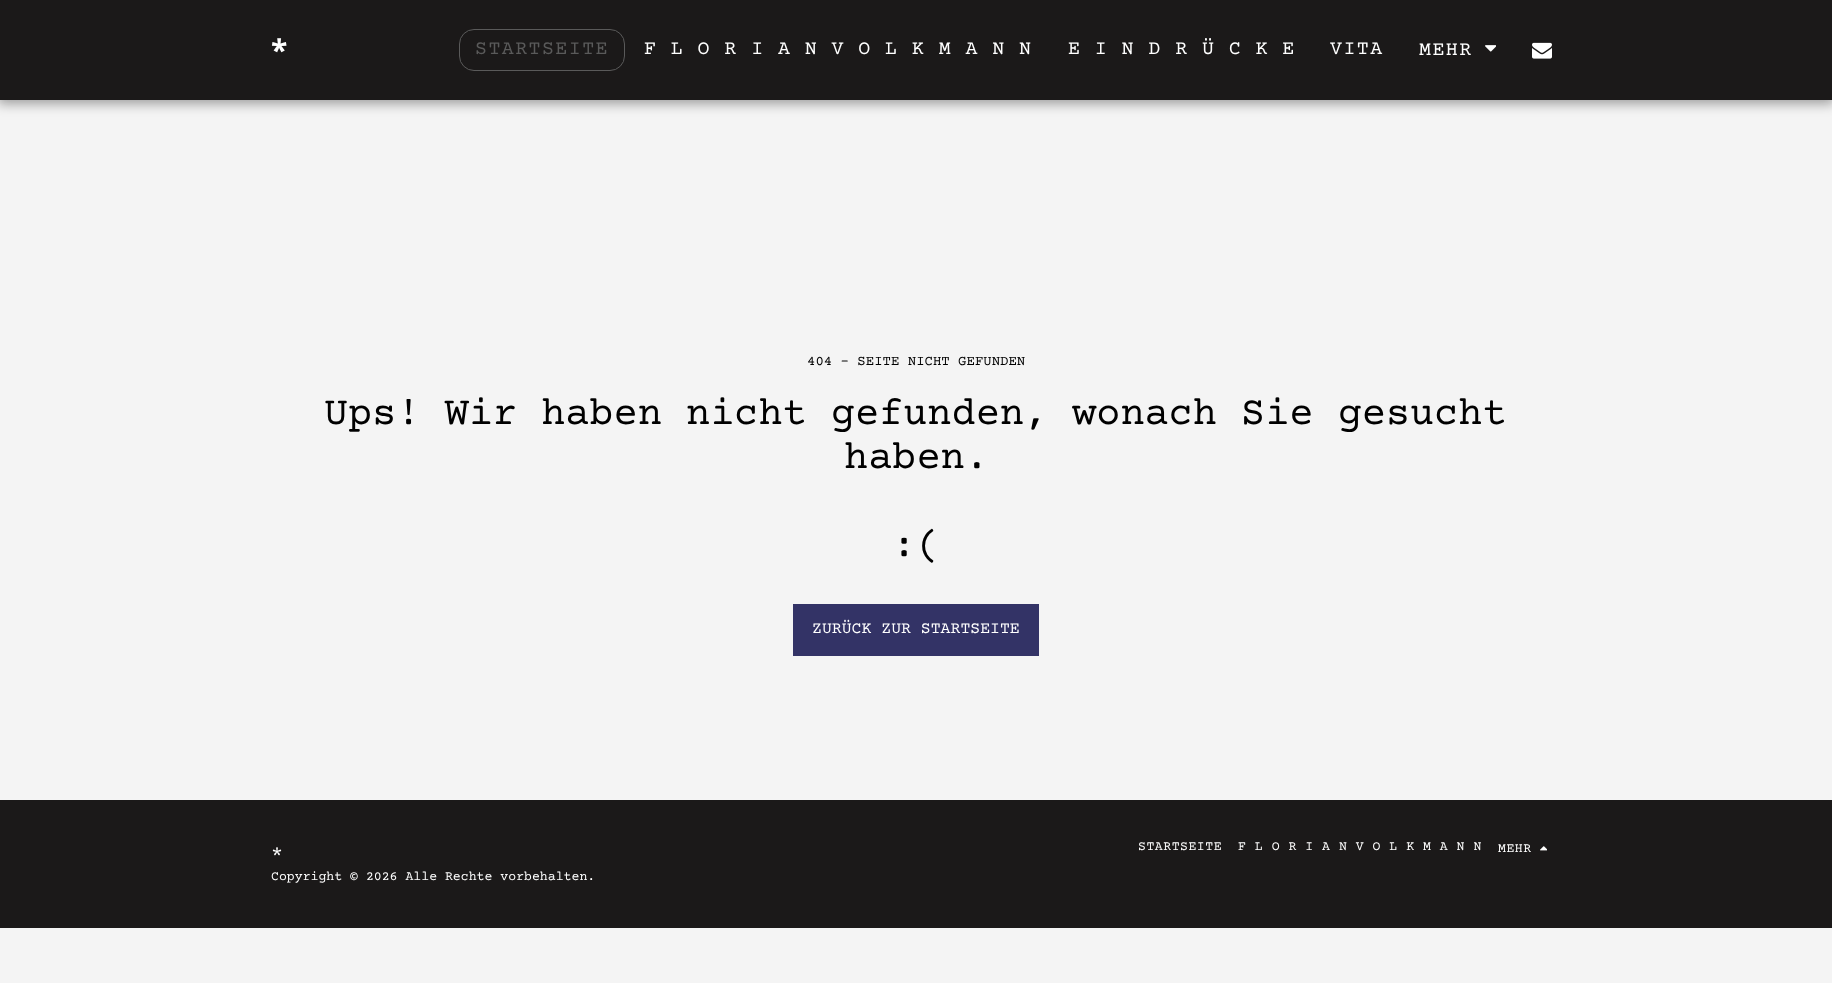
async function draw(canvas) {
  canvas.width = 1832
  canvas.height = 983
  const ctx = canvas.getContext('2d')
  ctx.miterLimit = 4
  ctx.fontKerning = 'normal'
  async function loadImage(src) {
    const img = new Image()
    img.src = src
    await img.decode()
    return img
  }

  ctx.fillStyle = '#f4f4f4'
  ctx.fillRect(0, 0, 1832, 983)
  ctx.fillStyle = '#00000059'
  ctx.filter = 'blur(6px)'
  ctx.beginPath()
  ctx.rect(-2, 0, 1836, 104)
  ctx.fill()
  ctx.filter = 'none'
  ctx.fillStyle = '#1b1919'
  ctx.fillRect(0, 0, 1832, 100)
  ctx.font = 'bold 30px Open Sans'
  ctx.fillStyle = '#fff'
  ctx.fillText('*', 271, 61)
  ctx.beginPath()
  ctx.roundRect(459.5, 29.5, 165, 41, 14.5)
  ctx.strokeStyle = '#5a5a5a'
  ctx.stroke()
  ctx.letterSpacing = '1.4px'
  ctx.font = '20px Courier Prime'
  ctx.fillStyle = '#5a5a5a'
  ctx.fillText('STARTSEITE', 475, 54)
  ctx.fillStyle = '#fff'
  ctx.fillText('F L O R I A N V O L K M A N N', 644, 54)
  ctx.fillText('E I N D R Ü C K E', 1068, 54)
  ctx.fillText('VITA', 1330, 54)
  ctx.fillText('MEHR', 1419, 55)
  ctx.drawImage(await loadImage('image0.png'), 1485, 45, 11, 7)
  ctx.drawImage(await loadImage('image1.png'), 1532, 42, 20, 17)
  ctx.letterSpacing = '0px'
  ctx.font = '14px Courier Prime'
  ctx.fillStyle = '#000'
  ctx.fillText('404 - SEITE NICHT GEFUNDEN', 807, 365)
  ctx.font = '40.25px Courier Prime'
  ctx.fillText('Ups! Wir haben nicht gefunden, wonach Sie gesucht', 324, 424)
  ctx.fillText('haben.', 844, 468)
  ctx.fillText(':(', 892, 556)
  ctx.fillStyle = '#336'
  ctx.fillRect(793, 604, 246, 52)
  ctx.font = '16.5px Courier Prime'
  ctx.fillStyle = '#fff'
  ctx.fillText('ZURÜCK ZUR STARTSEITE', 812, 633)
  ctx.fillStyle = '#1b1919'
  ctx.fillRect(0, 800, 1832, 128)
  ctx.font = '20px Courier Prime'
  ctx.fillStyle = '#fff'
  ctx.fillText('*', 271, 859)
  ctx.font = '13.2px Courier Prime'
  ctx.fillText('Copyright © 2026 Alle Rechte vorbehalten.', 271, 880)
  ctx.letterSpacing = '0.5px'
  ctx.fillText('STARTSEITE', 1138, 850)
  ctx.fillText('F L O R I A N V O L K M A N N', 1238, 850)
  ctx.fillText('MEHR', 1498, 852)
  ctx.drawImage(await loadImage('image2.png'), 1540, 846, 7, 5)
}

draw(document.querySelector('canvas'))
